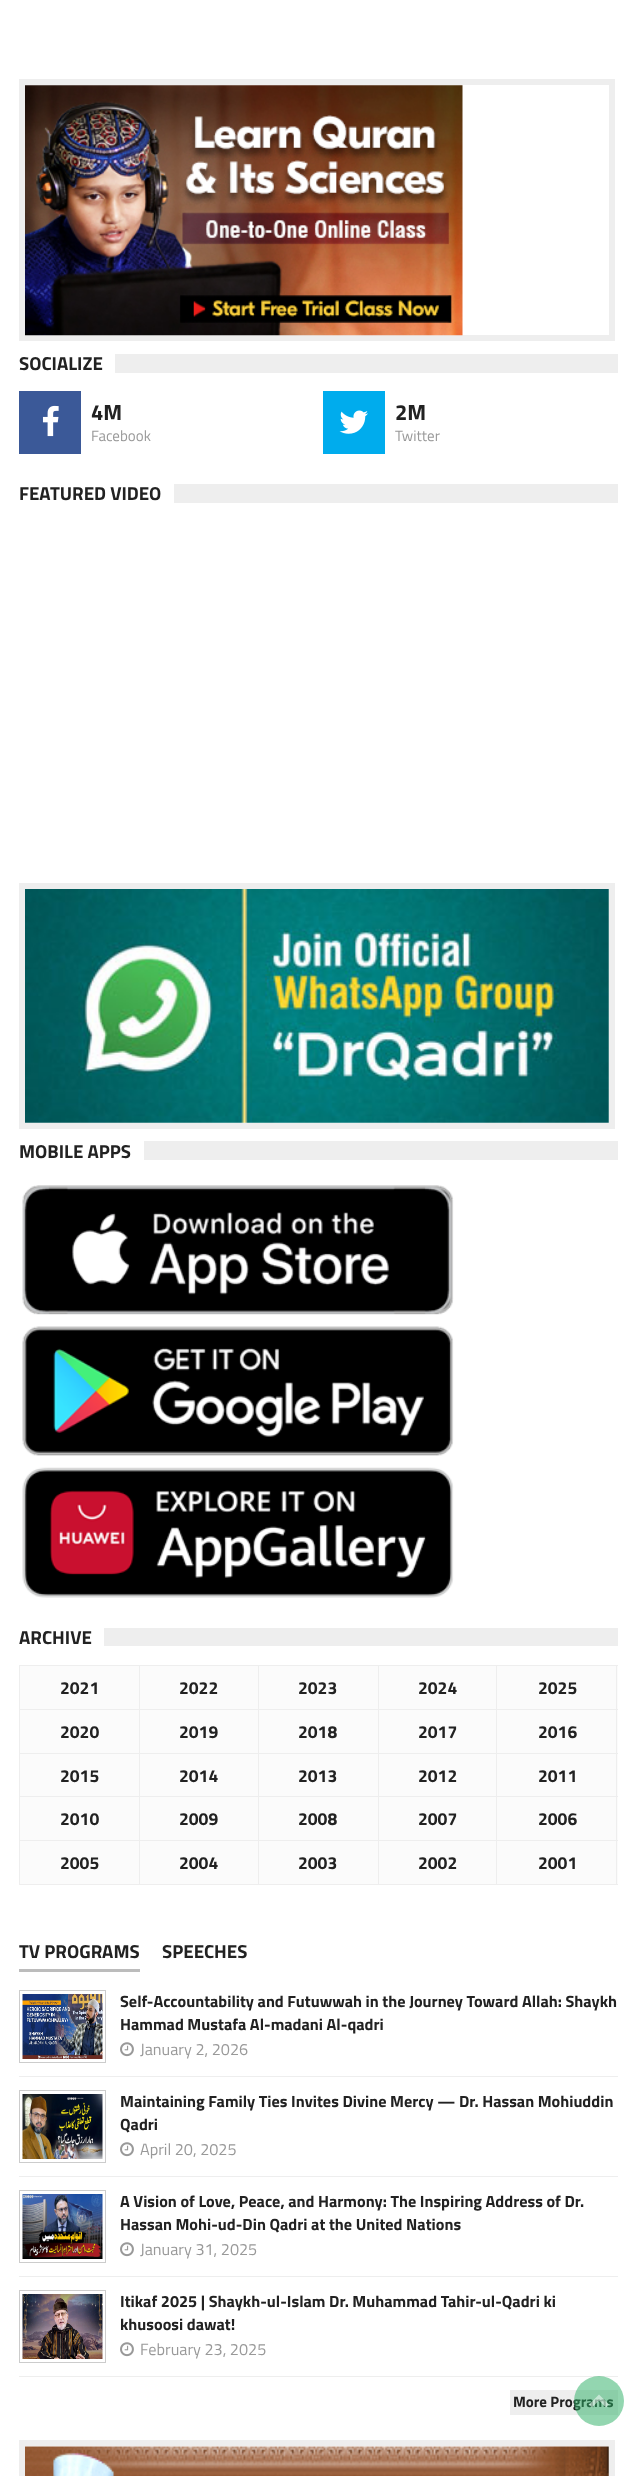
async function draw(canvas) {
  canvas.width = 636
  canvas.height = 2476
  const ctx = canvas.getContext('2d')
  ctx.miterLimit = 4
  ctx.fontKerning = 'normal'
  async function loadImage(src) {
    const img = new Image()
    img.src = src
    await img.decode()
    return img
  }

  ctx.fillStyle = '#fff'
  ctx.fillRect(0, 0, 636, 2476)
  ctx.strokeStyle = '#eee'
  ctx.lineWidth = 6
  ctx.strokeRect(22, 82, 590, 256)
  ctx.drawImage(await loadImage('image0.png'), 25, 85, 438, 251)
  ctx.fillStyle = '#eee'
  ctx.fillRect(115, 354, 503, 19)
  ctx.font = 'bold 18.75px Titillium Web'
  ctx.fillStyle = '#222'
  ctx.fillText('SOCIALIZE', 19, 370)
  ctx.fillStyle = '#3b5998'
  ctx.fillRect(19, 391, 62, 63)
  ctx.drawImage(await loadImage('image1.png'), 42, 405, 17, 32)
  ctx.font = 'bold 22px Titillium Web'
  ctx.fillStyle = '#222'
  ctx.fillText('4M', 91, 420)
  ctx.font = '15px Titillium Web'
  ctx.fillStyle = '#999'
  ctx.fillText('Facebook', 91, 441)
  ctx.fillStyle = '#00aced'
  ctx.fillRect(323, 391, 62, 63)
  ctx.drawImage(await loadImage('image2.png'), 339, 410, 29, 24)
  ctx.font = 'bold 22px Titillium Web'
  ctx.fillStyle = '#222'
  ctx.fillText('2M', 395, 420)
  ctx.font = '15px Titillium Web'
  ctx.fillStyle = '#999'
  ctx.fillText('Twitter', 395, 441)
  ctx.fillStyle = '#eee'
  ctx.fillRect(174, 484, 444, 19)
  ctx.font = 'bold 18.75px Titillium Web'
  ctx.fillStyle = '#222'
  ctx.fillText('FEATURED VIDEO', 19, 500)
  ctx.strokeRect(22, 886, 590, 240)
  ctx.drawImage(await loadImage('image3.png'), 25, 889, 584, 234)
  ctx.fillStyle = '#eee'
  ctx.fillRect(144, 1141, 474, 19)
  ctx.fillStyle = '#222'
  ctx.fillText('MOBILE APPS', 19, 1158)
  ctx.drawImage(await loadImage('image4.png'), 22, 1185, 432, 130)
  ctx.drawImage(await loadImage('image5.png'), 22, 1326, 432, 130)
  ctx.drawImage(await loadImage('image6.png'), 22, 1467, 432, 131)
  ctx.fillStyle = '#eee'
  ctx.fillRect(104, 1628, 514, 18)
  ctx.fillStyle = '#222'
  ctx.fillText('ARCHIVE', 19, 1644)
  ctx.fillStyle = '#fbfbfb'
  ctx.fillRect(20, 1666, 598, 218)
  ctx.fillStyle = '#eee'
  ctx.fillRect(496, 1665, 122, 1)
  ctx.fillRect(496, 1709, 122, 1)
  ctx.fillRect(496, 1753, 122, 1)
  ctx.fillRect(496, 1796, 122, 1)
  ctx.fillRect(496, 1840, 122, 1)
  ctx.fillRect(616, 1840, 1, 45)
  ctx.fillRect(496, 1884, 122, 1)
  ctx.fillRect(496, 1840, 1, 45)
  ctx.fillRect(378, 1840, 120, 1)
  ctx.fillRect(496, 1796, 1, 45)
  ctx.fillRect(378, 1796, 120, 1)
  ctx.fillRect(496, 1753, 1, 45)
  ctx.fillRect(378, 1753, 120, 1)
  ctx.fillRect(496, 1709, 1, 45)
  ctx.fillRect(378, 1709, 120, 1)
  ctx.fillRect(496, 1665, 1, 45)
  ctx.fillRect(378, 1665, 120, 1)
  ctx.fillRect(378, 1884, 120, 1)
  ctx.fillRect(378, 1840, 1, 45)
  ctx.fillRect(258, 1840, 121, 1)
  ctx.fillRect(378, 1796, 1, 45)
  ctx.fillRect(258, 1796, 121, 1)
  ctx.fillRect(378, 1753, 1, 45)
  ctx.fillRect(258, 1753, 121, 1)
  ctx.fillRect(378, 1709, 1, 45)
  ctx.fillRect(258, 1709, 121, 1)
  ctx.fillRect(378, 1665, 1, 45)
  ctx.fillRect(258, 1665, 121, 1)
  ctx.fillRect(258, 1884, 121, 1)
  ctx.fillRect(258, 1840, 1, 45)
  ctx.fillRect(139, 1840, 120, 1)
  ctx.fillRect(258, 1796, 1, 45)
  ctx.fillRect(139, 1796, 120, 1)
  ctx.fillRect(258, 1753, 1, 45)
  ctx.fillRect(139, 1753, 120, 1)
  ctx.fillRect(258, 1709, 1, 45)
  ctx.fillRect(139, 1709, 120, 1)
  ctx.fillRect(258, 1665, 1, 45)
  ctx.fillRect(139, 1665, 120, 1)
  ctx.fillRect(139, 1884, 120, 1)
  ctx.fillRect(139, 1840, 1, 45)
  ctx.fillRect(19, 1840, 121, 1)
  ctx.fillRect(139, 1796, 1, 45)
  ctx.fillRect(19, 1796, 121, 1)
  ctx.fillRect(139, 1753, 1, 45)
  ctx.fillRect(19, 1753, 121, 1)
  ctx.fillRect(139, 1709, 1, 45)
  ctx.fillRect(19, 1709, 121, 1)
  ctx.fillRect(139, 1665, 1, 45)
  ctx.fillRect(19, 1665, 121, 1)
  ctx.fillRect(19, 1884, 121, 1)
  ctx.fillRect(19, 1840, 1, 45)
  ctx.fillRect(19, 1796, 1, 45)
  ctx.fillRect(19, 1753, 1, 45)
  ctx.fillRect(19, 1709, 1, 45)
  ctx.fillRect(19, 1665, 1, 45)
  ctx.font = 'bold 17.5px Titillium Web'
  ctx.fillStyle = '#222'
  ctx.fillText('2021', 60, 1694)
  ctx.fillText('2022', 179, 1694)
  ctx.fillText('2023', 298, 1694)
  ctx.fillText('2024', 418, 1694)
  ctx.fillStyle = '#eee'
  ctx.fillRect(616, 1796, 1, 45)
  ctx.fillRect(616, 1753, 1, 45)
  ctx.fillRect(616, 1709, 1, 45)
  ctx.fillRect(616, 1665, 1, 45)
  ctx.fillStyle = '#222'
  ctx.fillText('2025', 538, 1694)
  ctx.fillText('2020', 60, 1738)
  ctx.fillText('2019', 179, 1738)
  ctx.fillText('2018', 298, 1738)
  ctx.fillText('2017', 418, 1738)
  ctx.fillText('2016', 538, 1738)
  ctx.fillText('2015', 60, 1782)
  ctx.fillText('2014', 179, 1782)
  ctx.fillText('2013', 298, 1782)
  ctx.fillText('2012', 418, 1782)
  ctx.fillText('2011', 538, 1782)
  ctx.fillText('2010', 60, 1825)
  ctx.fillText('2009', 179, 1825)
  ctx.fillText('2008', 298, 1825)
  ctx.fillText('2007', 418, 1825)
  ctx.fillText('2006', 538, 1825)
  ctx.fillText('2005', 60, 1869)
  ctx.fillText('2004', 179, 1869)
  ctx.fillText('2003', 298, 1869)
  ctx.fillText('2002', 418, 1869)
  ctx.fillText('2001', 538, 1869)
  ctx.fillStyle = '#bcbcbc'
  ctx.fillRect(19, 1969, 121, 3)
  ctx.font = 'bold 18.75px Titillium Web'
  ctx.fillStyle = '#222'
  ctx.fillText('TV PROGRAMS', 19, 1958)
  ctx.fillText('SPEECHES', 162, 1958)
  ctx.fillStyle = '#eee'
  ctx.fillRect(19, 2076, 599, 1)
  ctx.strokeStyle = '#ccc'
  ctx.lineWidth = 1
  ctx.strokeRect(19.5, 1990.5, 86, 72)
  ctx.drawImage(await loadImage('image7.png'), 22, 1994, 81, 65)
  ctx.font = 'bold 16.25px Titillium Web'
  ctx.fillStyle = '#222'
  ctx.fillText('Self-Accountability and Futuwwah in the Journey Toward Allah: Shaykh', 120, 2007)
  ctx.fillText('Hammad Mustafa Al-madani Al-qadri', 120, 2030)
  ctx.drawImage(await loadImage('image8.png'), 120, 2042, 14, 15)
  ctx.font = '16.25px Titillium Web'
  ctx.fillStyle = '#999'
  ctx.fillText('January 2, 2026', 140, 2055)
  ctx.fillStyle = '#eee'
  ctx.fillRect(19, 2176, 599, 1)
  ctx.strokeRect(19.5, 2090.5, 86, 72)
  ctx.drawImage(await loadImage('image9.png'), 22, 2094, 81, 65)
  ctx.font = 'bold 16.25px Titillium Web'
  ctx.fillStyle = '#222'
  ctx.fillText('Maintaining Family Ties Invites Divine Mercy — Dr. Hassan Mohiuddin', 120, 2107)
  ctx.fillText('Qadri', 120, 2130)
  ctx.drawImage(await loadImage('image8.png'), 120, 2142, 14, 15)
  ctx.font = '16.25px Titillium Web'
  ctx.fillStyle = '#999'
  ctx.fillText('April 20, 2025', 140, 2155)
  ctx.fillStyle = '#eee'
  ctx.fillRect(19, 2276, 599, 1)
  ctx.strokeRect(19.5, 2190.5, 86, 72)
  ctx.drawImage(await loadImage('image10.png'), 22, 2194, 81, 65)
  ctx.font = 'bold 16.25px Titillium Web'
  ctx.fillStyle = '#222'
  ctx.fillText('A Vision of Love, Peace, and Harmony: The Inspiring Address of Dr.', 120, 2207)
  ctx.fillText('Hassan Mohi-ud-Din Qadri at the United Nations', 120, 2230)
  ctx.drawImage(await loadImage('image8.png'), 120, 2242, 14, 15)
  ctx.font = '16.25px Titillium Web'
  ctx.fillStyle = '#999'
  ctx.fillText('January 31, 2025', 140, 2255)
  ctx.fillStyle = '#eee'
  ctx.fillRect(19, 2376, 599, 1)
  ctx.strokeRect(19.5, 2290.5, 86, 72)
  ctx.drawImage(await loadImage('image11.png'), 22, 2294, 81, 65)
  ctx.font = 'bold 16.25px Titillium Web'
  ctx.fillStyle = '#222'
  ctx.fillText('Itikaf 2025 | Shaykh-ul-Islam Dr. Muhammad Tahir-ul-Qadri ki', 120, 2307)
  ctx.fillText('khusoosi dawat!', 120, 2330)
  ctx.drawImage(await loadImage('image8.png'), 120, 2342, 14, 15)
  ctx.font = '16.25px Titillium Web'
  ctx.fillStyle = '#999'
  ctx.fillText('February 23, 2025', 140, 2355)
  ctx.fillStyle = '#eee'
  ctx.fillRect(510, 2390, 108, 25)
  ctx.font = 'bold 15px Titillium Web'
  ctx.fillStyle = '#222'
  ctx.fillText('More Programs', 513, 2407)
  ctx.strokeStyle = '#eee'
  ctx.lineWidth = 6
  ctx.strokeRect(22, 2443, 590, 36)
  ctx.drawImage(await loadImage('image12.png'), 25, 2446, 584, 30)
  ctx.fillStyle = '#27ae6180'
  ctx.beginPath()
  ctx.arc(599, 2401, 25, 0, 2 * Math.PI)
  ctx.fill()
  ctx.fillStyle = '#ffffff80'
  ctx.beginPath()
  ctx.moveTo(599, 2394.5)
  ctx.lineTo(609, 2404.5)
  ctx.lineTo(606, 2407.5)
  ctx.lineTo(599, 2400.5)
  ctx.lineTo(592, 2407.5)
  ctx.lineTo(589, 2404.5)
  ctx.closePath()
  ctx.fill()
}

draw(document.querySelector('canvas'))
